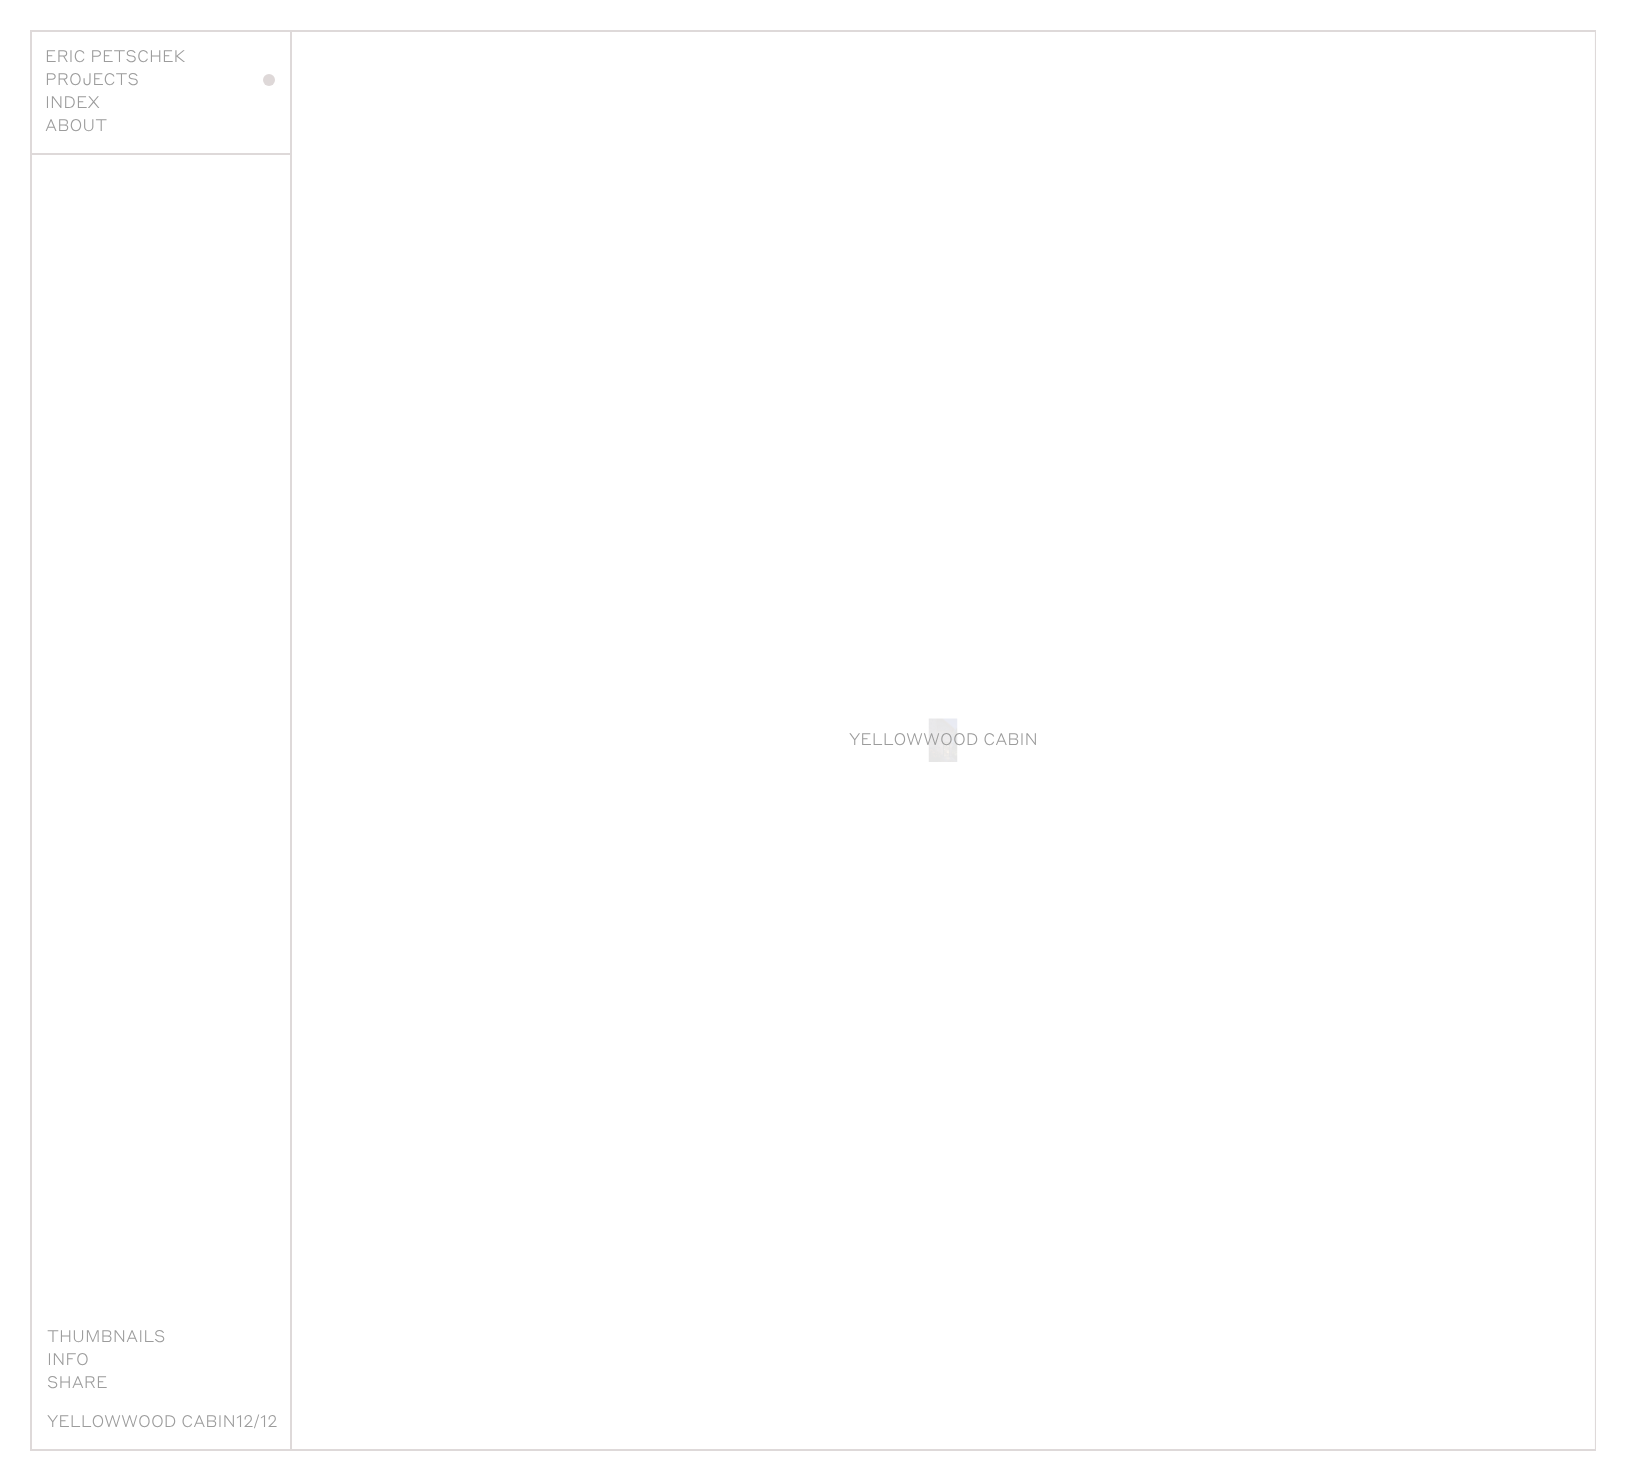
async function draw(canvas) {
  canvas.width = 1625
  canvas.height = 1480
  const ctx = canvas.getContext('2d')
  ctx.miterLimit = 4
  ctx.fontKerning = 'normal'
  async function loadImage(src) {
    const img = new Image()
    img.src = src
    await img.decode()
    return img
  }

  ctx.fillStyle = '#fff'
  ctx.fillRect(0, 0, 1625, 1480)
  ctx.strokeStyle = '#ded9d9'
  ctx.lineWidth = 2
  ctx.strokeRect(31, 31, 1564, 1419)
  ctx.fillStyle = '#ded9d9'
  ctx.fillRect(290, 30, 2, 1421)
  ctx.fillRect(30, 153, 260, 2)
  ctx.font = '300 16.5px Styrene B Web'
  ctx.fillStyle = '#9c9c9c'
  ctx.fillText('ERIC PETSCHEK', 45, 62)
  ctx.fillText('PROJECTS', 45, 85)
  ctx.fillStyle = '#ded8d8'
  ctx.beginPath()
  ctx.arc(269, 80, 6, 0, 2 * Math.PI)
  ctx.fill()
  ctx.fillStyle = '#9c9c9c'
  ctx.fillText('INDEX', 45, 108)
  ctx.fillText('ABOUT', 45, 131)
  ctx.drawImage(await loadImage('image0.png'), 928, 718, 30, 44)
  ctx.fillStyle = '#ffffffe6'
  ctx.fillRect(928, 32, 667, 1417)
  ctx.fillStyle = '#9c9c9c'
  ctx.fillText('YELLOWWOOD CABIN', 849, 745)
  ctx.fillText('THUMBNAILS', 47, 1342)
  ctx.fillText('INFO', 47, 1365)
  ctx.fillText('SHARE', 47, 1388)
  ctx.fillText('YELLOWWOOD CABIN', 47, 1427)
  ctx.fillText('12/12', 236, 1427)
}

draw(document.querySelector('canvas'))
